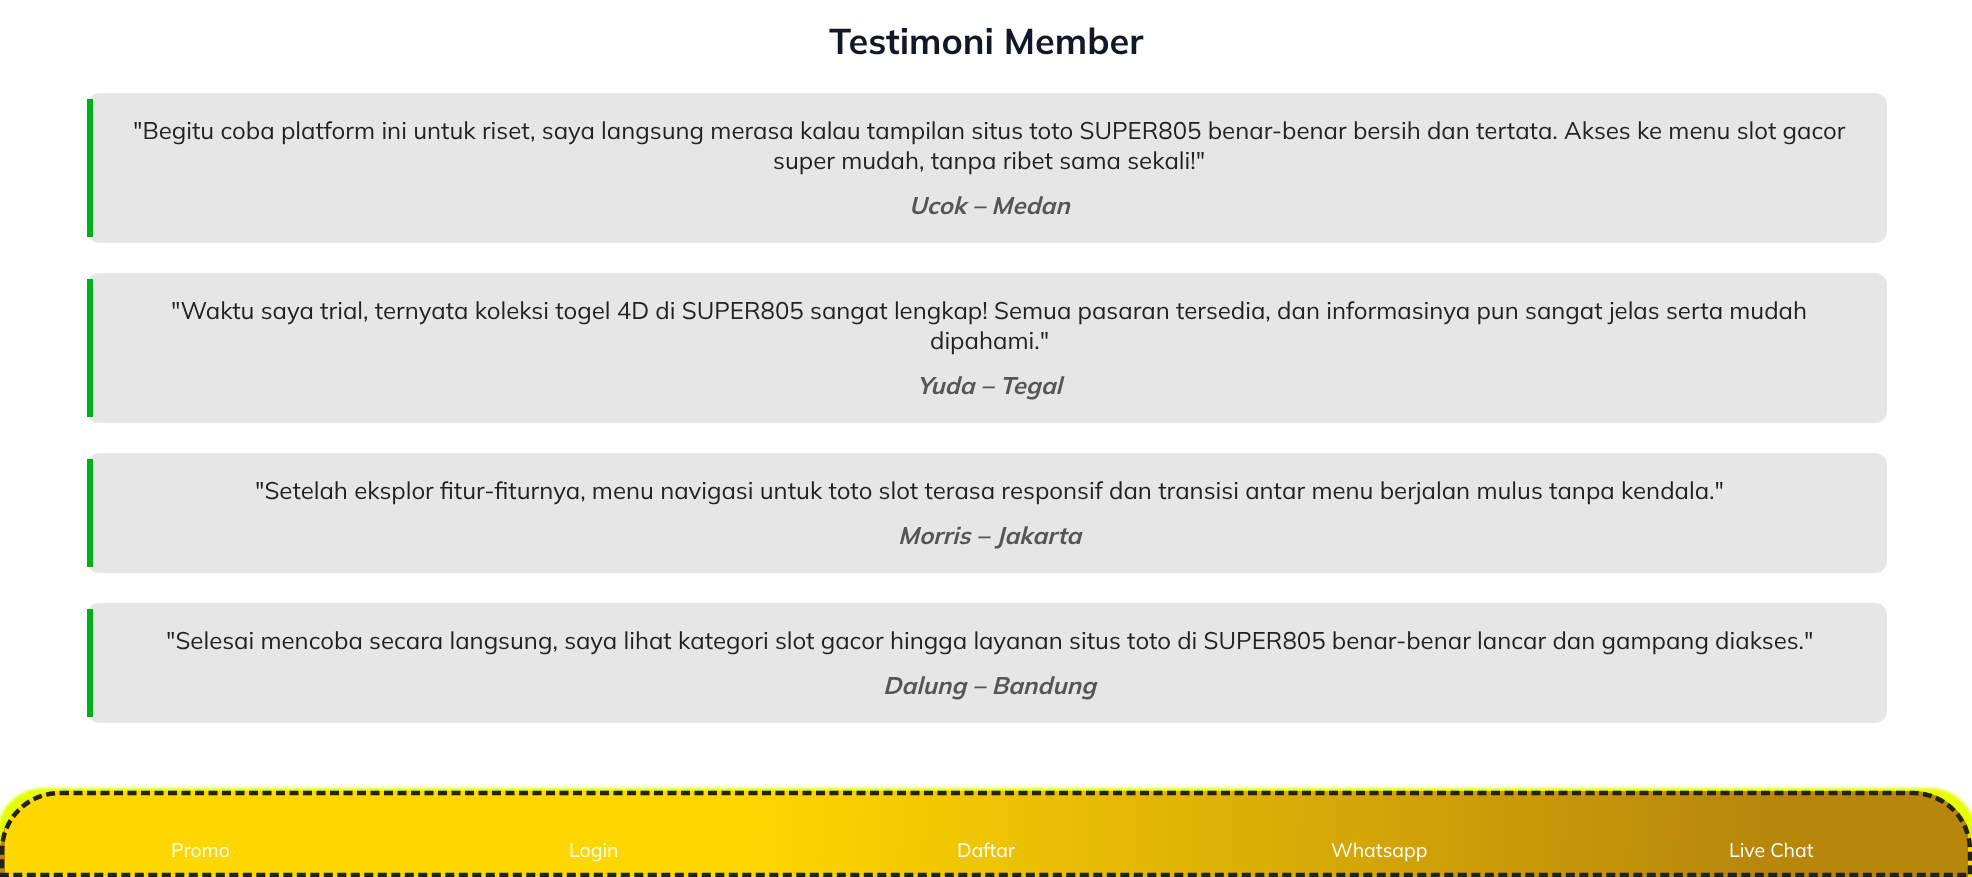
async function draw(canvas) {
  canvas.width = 1972
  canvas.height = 877
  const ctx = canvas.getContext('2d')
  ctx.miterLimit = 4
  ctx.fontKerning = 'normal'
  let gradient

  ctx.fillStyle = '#fff'
  ctx.fillRect(0, 0, 1972, 877)
  ctx.font = 'bold 36px Mulish'
  ctx.fillStyle = '#111827'
  ctx.fillText('Testimoni Member', 829, 54)
  ctx.fillStyle = '#e6e6e6'
  ctx.beginPath()
  ctx.roundRect(87, 93, 1800, 150, 12)
  ctx.fill()
  ctx.fillStyle = '#00af1c'
  ctx.fillRect(87, 99, 6, 138)
  ctx.font = '24px Mulish'
  ctx.fillStyle = '#222'
  ctx.fillText('"Begitu coba platform ini untuk riset, saya langsung merasa kalau tampilan situs toto SUPER805 benar-benar bersih dan tertata. Akses ke menu slot gacor', 133, 139)
  ctx.fillText('super mudah, tanpa ribet sama sekali!"', 773, 169)
  ctx.font = 'italic bold 24px Mulish'
  ctx.fillStyle = '#555'
  ctx.fillText('Ucok – Medan', 909, 214)
  ctx.fillStyle = '#e6e6e6'
  ctx.beginPath()
  ctx.roundRect(87, 273, 1800, 150, 12)
  ctx.fill()
  ctx.fillStyle = '#00af1c'
  ctx.fillRect(87, 279, 6, 138)
  ctx.font = '24px Mulish'
  ctx.fillStyle = '#222'
  ctx.fillText('"Waktu saya trial, ternyata koleksi togel 4D di SUPER805 sangat lengkap! Semua pasaran tersedia, dan informasinya pun sangat jelas serta mudah', 171, 319)
  ctx.fillText('dipahami."', 930, 349)
  ctx.font = 'italic bold 24px Mulish'
  ctx.fillStyle = '#555'
  ctx.fillText('Yuda – Tegal', 917, 394)
  ctx.fillStyle = '#e6e6e6'
  ctx.beginPath()
  ctx.roundRect(87, 453, 1800, 120, 12)
  ctx.fill()
  ctx.fillStyle = '#00af1c'
  ctx.fillRect(87, 459, 6, 108)
  ctx.font = '24px Mulish'
  ctx.fillStyle = '#222'
  ctx.fillText('"Setelah eksplor fitur-fiturnya, menu navigasi untuk toto slot terasa responsif dan transisi antar menu berjalan mulus tanpa kendala."', 255, 499)
  ctx.font = 'italic bold 24px Mulish'
  ctx.fillStyle = '#555'
  ctx.fillText('Morris – Jakarta', 898, 544)
  ctx.fillStyle = '#e6e6e6'
  ctx.beginPath()
  ctx.roundRect(87, 603, 1800, 120, 12)
  ctx.fill()
  ctx.fillStyle = '#00af1c'
  ctx.fillRect(87, 609, 6, 108)
  ctx.font = '24px Mulish'
  ctx.fillStyle = '#222'
  ctx.fillText('"Selesai mencoba secara langsung, saya lihat kategori slot gacor hingga layanan situs toto di SUPER805 benar-benar lancar dan gampang diakses."', 166, 649)
  ctx.font = 'italic bold 24px Mulish'
  ctx.fillStyle = '#555'
  ctx.fillText('Dalung – Bandung', 883, 694)
  ctx.fillStyle = '#e5ff00'
  ctx.filter = 'blur(1.5px)'
  ctx.beginPath()
  ctx.roundRect(-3, 788, 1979, 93, 63)
  ctx.fill()
  ctx.filter = 'none'
  ctx.save()
  ctx.beginPath()
  ctx.moveTo(60, 791)
  ctx.lineTo(1913, 791)
  ctx.bezierCurveTo(1946, 791, 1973, 818, 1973, 851)
  ctx.lineTo(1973, 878)
  ctx.lineTo(0, 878)
  ctx.lineTo(0, 851)
  ctx.bezierCurveTo(0, 818, 27, 791, 60, 791)
  ctx.closePath()
  ctx.clip()
  gradient = ctx.createRadialGradient(-74, 707, 0, -74, 707, 2044)
  gradient.addColorStop(0.4, '#ffd700')
  gradient.addColorStop(0.9, '#b8860b')
  ctx.fillStyle = gradient
  ctx.fillRect(38, 791, 1897, 4)
  gradient = ctx.createRadialGradient(-2038, 785, 0, -2038, 785, 2044)
  gradient.addColorStop(0.4, '#ffd700')
  gradient.addColorStop(0.9, '#b8860b')
  ctx.fillStyle = gradient
  ctx.fillRect(0, 827, 5, 46)
  gradient = ctx.createRadialGradient(-74, 785, 0, -74, 785, 2044)
  gradient.addColorStop(0.4, '#ffd700')
  gradient.addColorStop(0.9, '#b8860b')
  ctx.fillStyle = gradient
  ctx.fillRect(5, 795, 1963, 78)
  gradient = ctx.createRadialGradient(1889, 785, 0, 1889, 785, 2044)
  gradient.addColorStop(0.4, '#ffd700')
  gradient.addColorStop(0.9, '#b8860b')
  ctx.fillStyle = gradient
  ctx.fillRect(1968, 827, 4, 46)
  ctx.restore()
  gradient = ctx.createRadialGradient(-74, 863, 0, -74, 863, 2044)
  gradient.addColorStop(0.4, '#ffd700')
  gradient.addColorStop(0.9, '#b8860b')
  ctx.fillStyle = gradient
  ctx.fillRect(5, 873, 1963, 4)
  gradient = ctx.createRadialGradient(1889, 863, 0, 1889, 863, 2044)
  gradient.addColorStop(0.4, '#ffd700')
  gradient.addColorStop(0.9, '#b8860b')
  ctx.fillStyle = gradient
  ctx.fillRect(1968, 874, 4, 3)
  ctx.beginPath()
  ctx.moveTo(60, 793)
  ctx.lineTo(1912.5, 793)
  ctx.bezierCurveTo(1944.5, 793, 1970, 818.5, 1970, 850.5)
  ctx.lineTo(1970, 875)
  ctx.lineTo(2, 875)
  ctx.lineTo(2, 850.5)
  ctx.bezierCurveTo(2, 818.5, 28, 793, 60, 793)
  ctx.closePath()
  ctx.strokeStyle = '#222'
  ctx.lineWidth = 4.5
  ctx.setLineDash([9, 4.5])
  ctx.stroke()
  ctx.font = '19.5px Mulish'
  ctx.fillStyle = '#fff'
  ctx.fillText('Promo', 171, 857)
  ctx.fillText('Login', 569, 857)
  ctx.fillText('Daftar', 957, 857)
  ctx.fillText('Whatsapp', 1331, 857)
  ctx.fillText('Live Chat', 1729, 857)
}

draw(document.querySelector('canvas'))
